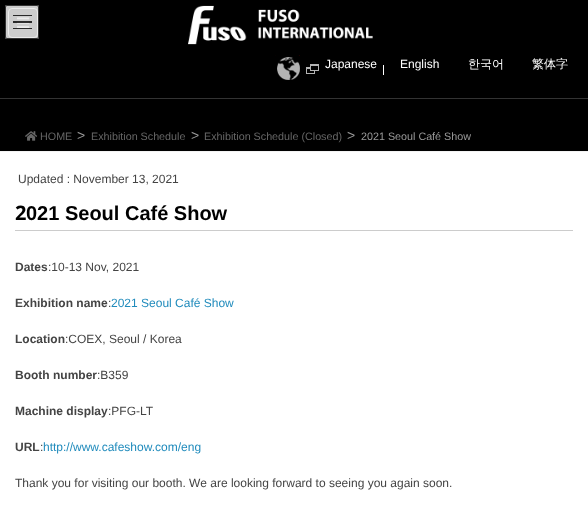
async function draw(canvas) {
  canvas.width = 588
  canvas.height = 525
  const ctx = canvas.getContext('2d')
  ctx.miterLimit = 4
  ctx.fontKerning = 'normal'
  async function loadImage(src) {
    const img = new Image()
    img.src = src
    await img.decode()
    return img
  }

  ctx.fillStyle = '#000'
  ctx.fillRect(0, 0, 588, 525)
  ctx.beginPath()
  ctx.roundRect(8.5, 8.5, 29, 29, 3.5)
  ctx.strokeStyle = '#999'
  ctx.stroke()
  ctx.drawImage(await loadImage('image0.png'), 17, 17, 13, 12)
  ctx.fillStyle = '#ffffffcc'
  ctx.beginPath()
  ctx.roundRect(5, 5, 34, 34, 2)
  ctx.fill()
  ctx.fillStyle = '#292929'
  ctx.fillRect(13, 15, 19, 1)
  ctx.fillStyle = '#000000cc'
  ctx.fillRect(13, 21, 19, 2)
  ctx.fillRect(13, 28, 19, 1)
  ctx.beginPath()
  ctx.roundRect(5.5, 5.5, 33, 33, 1.5)
  ctx.strokeStyle = '#333'
  ctx.stroke()
  ctx.fillStyle = '#333'
  ctx.fillRect(0, 98, 588, 1)
  ctx.drawImage(await loadImage('image1.png'), 188, 5, 185, 40)
  ctx.drawImage(await loadImage('image2.png'), 275, 55, 25, 25)
  ctx.drawImage(await loadImage('image3.png'), 306, 64, 13, 10)
  ctx.font = '12px Liberation Sans'
  ctx.fillStyle = '#fff'
  ctx.fillText('Japanese', 325, 68)
  ctx.fillRect(383, 65, 1, 10)
  ctx.fillText('English', 400, 68)
  ctx.font = '500 12px WenQuanYi Zen Hei'
  ctx.fillText('한국어', 468, 68)
  ctx.fillText('繁体字', 532, 68)
  ctx.fillStyle = '#f3f3f3'
  ctx.fillRect(0, 151, 588, 1)
  ctx.drawImage(await loadImage('image4.png'), 25, 131, 12, 10)
  ctx.font = '10.75px Liberation Sans'
  ctx.fillStyle = '#666'
  ctx.fillText('HOME', 40, 140)
  ctx.font = '14px Liberation Sans'
  ctx.fillStyle = '#999'
  ctx.fillText('>', 77, 140)
  ctx.font = '10.75px Liberation Sans'
  ctx.fillStyle = '#666'
  ctx.fillText('Exhibition Schedule', 91, 140)
  ctx.font = '14px Liberation Sans'
  ctx.fillStyle = '#999'
  ctx.fillText('>', 191, 140)
  ctx.font = '10.75px Liberation Sans'
  ctx.fillStyle = '#666'
  ctx.fillText('Exhibition Schedule (Closed)', 204, 140)
  ctx.font = '14px Liberation Sans'
  ctx.fillStyle = '#999'
  ctx.fillText('>', 347, 140)
  ctx.font = '10.75px Liberation Sans'
  ctx.fillText('2021 Seoul Café Show', 361, 140)
  ctx.fillStyle = '#fff'
  ctx.fillRect(0, 152, 588, 373)
  ctx.font = '12px Liberation Sans'
  ctx.fillStyle = '#444'
  ctx.fillText('Updated : November 13, 2021', 18, 183)
  ctx.fillStyle = '#ccc'
  ctx.fillRect(15, 230, 558, 1)
  ctx.font = 'bold 20px Noto Sans'
  ctx.fillStyle = '#000'
  ctx.fillText('2', 15, 220)
  ctx.font = 'bold 20px Liberation Sans'
  ctx.fillText('021 Seoul Café Show', 26, 220)
  ctx.font = 'bold 12px Liberation Sans'
  ctx.fillStyle = '#444'
  ctx.fillText('Dates', 15, 271)
  ctx.font = '12px Liberation Sans'
  ctx.fillText(':10-13 Nov, 2021', 48, 271)
  ctx.font = 'bold 12px Liberation Sans'
  ctx.fillText('Exhibition name', 15, 307)
  ctx.font = '12px Liberation Sans'
  ctx.fillText(':', 108, 307)
  ctx.fillStyle = '#208bbc'
  ctx.fillText('2021 Seoul Café Show', 111, 307)
  ctx.font = 'bold 12px Liberation Sans'
  ctx.fillStyle = '#444'
  ctx.fillText('Location', 15, 343)
  ctx.font = '12px Liberation Sans'
  ctx.fillText(':COEX, Seoul / Korea', 65, 343)
  ctx.font = 'bold 12px Liberation Sans'
  ctx.fillText('Booth number', 15, 379)
  ctx.font = '12px Liberation Sans'
  ctx.fillText(':B359', 97, 379)
  ctx.font = 'bold 12px Liberation Sans'
  ctx.fillText('Machine display', 15, 415)
  ctx.font = '12px Liberation Sans'
  ctx.fillText(':PFG-LT', 108, 415)
  ctx.font = 'bold 12px Liberation Sans'
  ctx.fillText('URL', 15, 451)
  ctx.font = '12px Liberation Sans'
  ctx.fillText(':', 40, 451)
  ctx.fillStyle = '#208bbc'
  ctx.fillText('http://www.cafeshow.com/eng', 43, 451)
  ctx.fillStyle = '#444'
  ctx.fillText('Thank you for visiting our booth. We are looking forward to seeing you again soon.', 15, 487)
}

draw(document.querySelector('canvas'))
